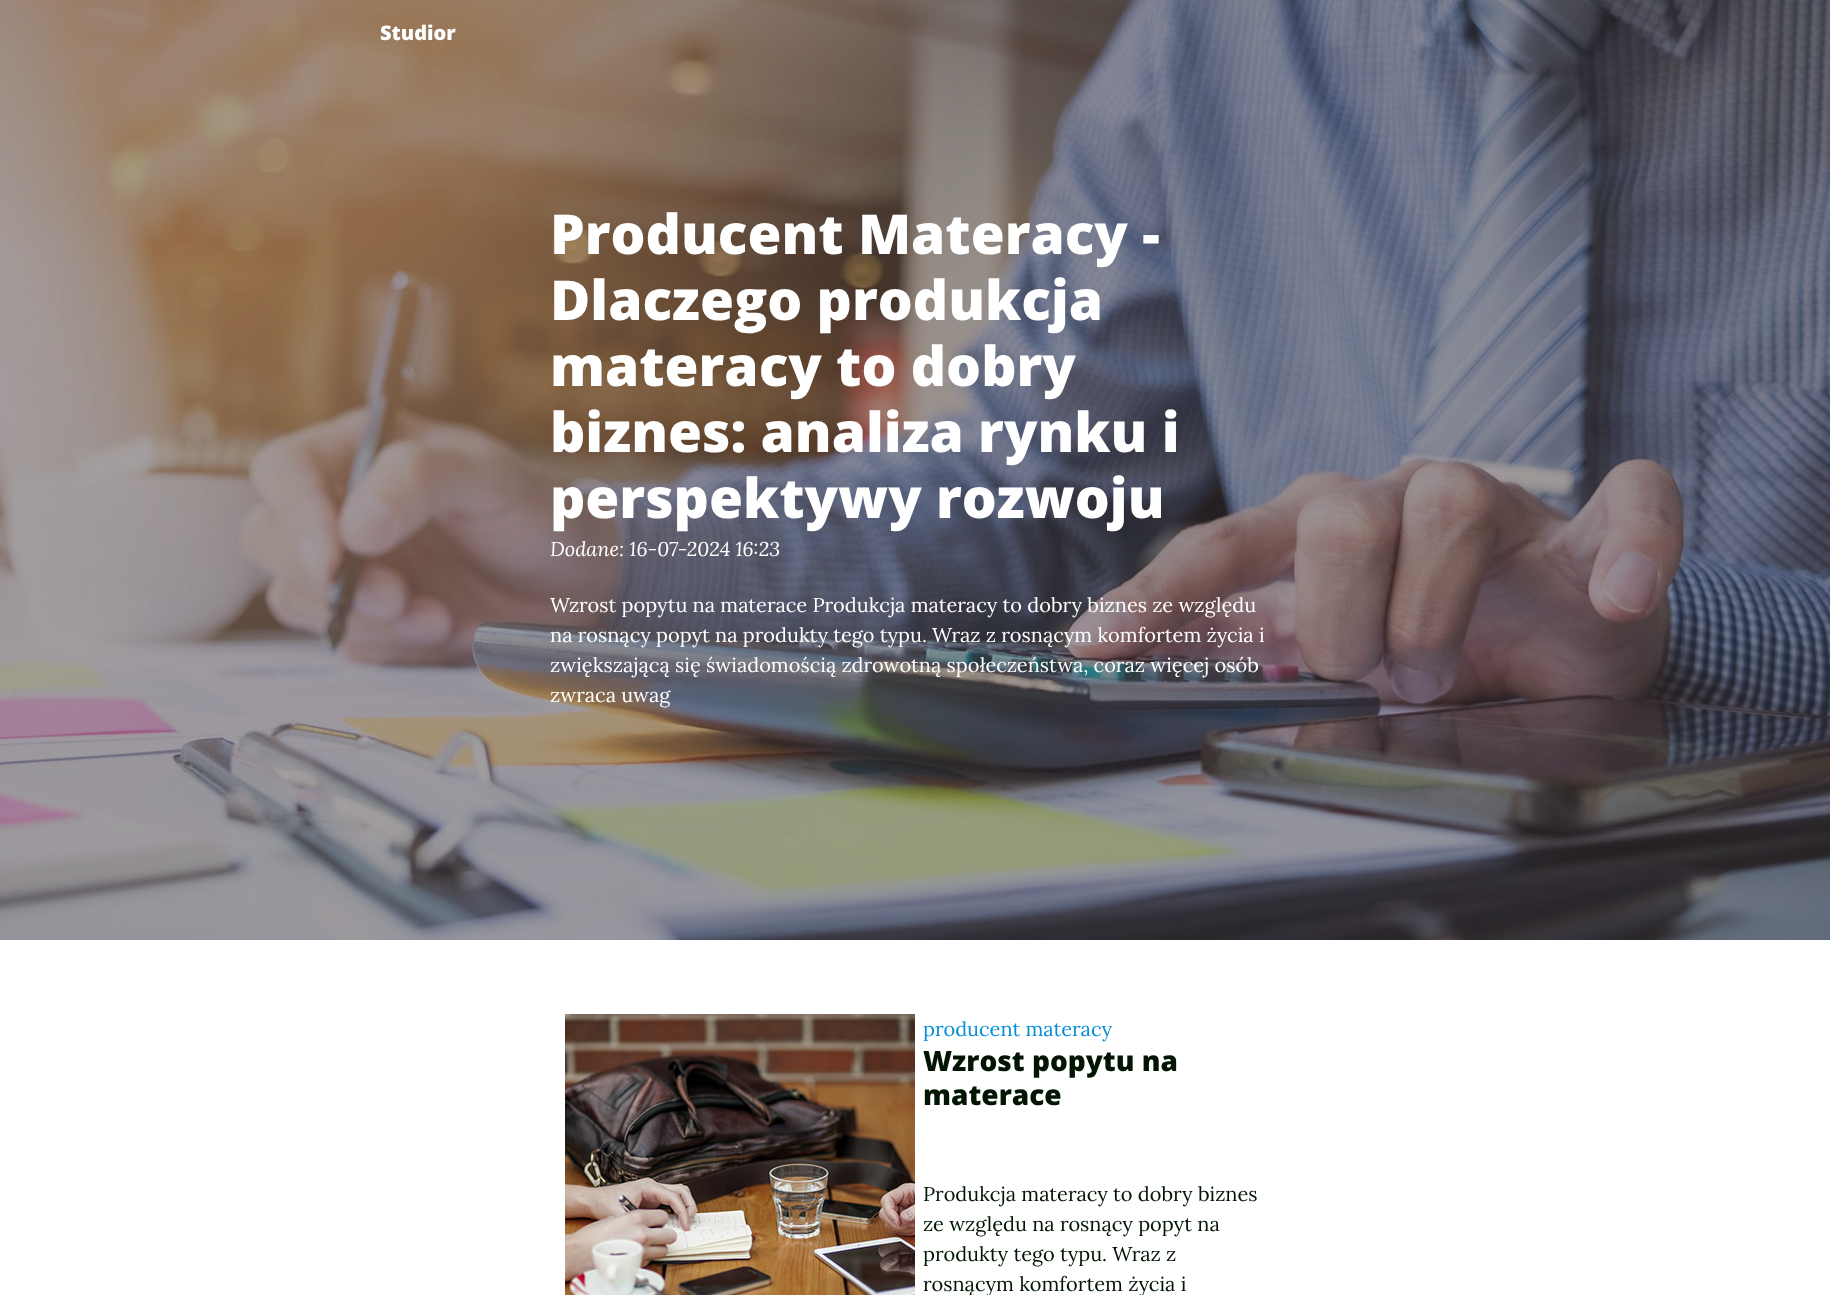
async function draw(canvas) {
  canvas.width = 1830
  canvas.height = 1295
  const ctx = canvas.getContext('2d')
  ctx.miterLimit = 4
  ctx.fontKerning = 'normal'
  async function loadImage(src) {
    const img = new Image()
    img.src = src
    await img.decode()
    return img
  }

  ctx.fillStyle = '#fff'
  ctx.fillRect(0, 0, 1830, 1295)
  ctx.drawImage(await loadImage('image0.png'), 0, 0, 1830, 940)
  ctx.font = '800 20px Open Sans'
  ctx.fillText('Studior', 380, 40)
  ctx.font = '800 55px Open Sans'
  ctx.fillText('Producent Materacy -', 550, 254)
  ctx.fillText('Dlaczego produkcja', 550, 320)
  ctx.fillText('materacy to dobry', 550, 386)
  ctx.fillText('biznes: analiza rynku i', 550, 452)
  ctx.fillText('perspektywy rozwoju', 550, 518)
  ctx.font = 'italic 20px Lora'
  ctx.fillText('Dodane: 16-07-2024 16:23', 550, 556)
  ctx.font = '20px Lora'
  ctx.fillText('Wzrost popytu na materace Produkcja materacy to dobry biznes ze względu', 550, 612)
  ctx.fillText('na rosnący popyt na produkty tego typu. Wraz z rosnącym komfortem życia i', 550, 642)
  ctx.fillText('zwiększającą się świadomością zdrowotną społeczeństwa, coraz więcej osób', 550, 672)
  ctx.fillText('zwraca uwag', 550, 702)
  ctx.drawImage(await loadImage('image1.png'), 565, 1014, 350, 281)
  ctx.fillStyle = '#058ed9'
  ctx.fillText('producent materacy', 923, 1036)
  ctx.font = '800 28px Open Sans'
  ctx.fillStyle = '#011502'
  ctx.fillText('Wzrost popytu na', 923, 1071)
  ctx.fillText('materace', 923, 1105)
  ctx.font = '20px Lora'
  ctx.fillText('Produkcja materacy to dobry biznes', 923, 1201)
  ctx.fillText('ze względu na rosnący popyt na', 923, 1231)
  ctx.fillText('produkty tego typu. Wraz z', 923, 1261)
  ctx.fillText('rosnącym komfortem życia i', 923, 1291)
}

draw(document.querySelector('canvas'))
